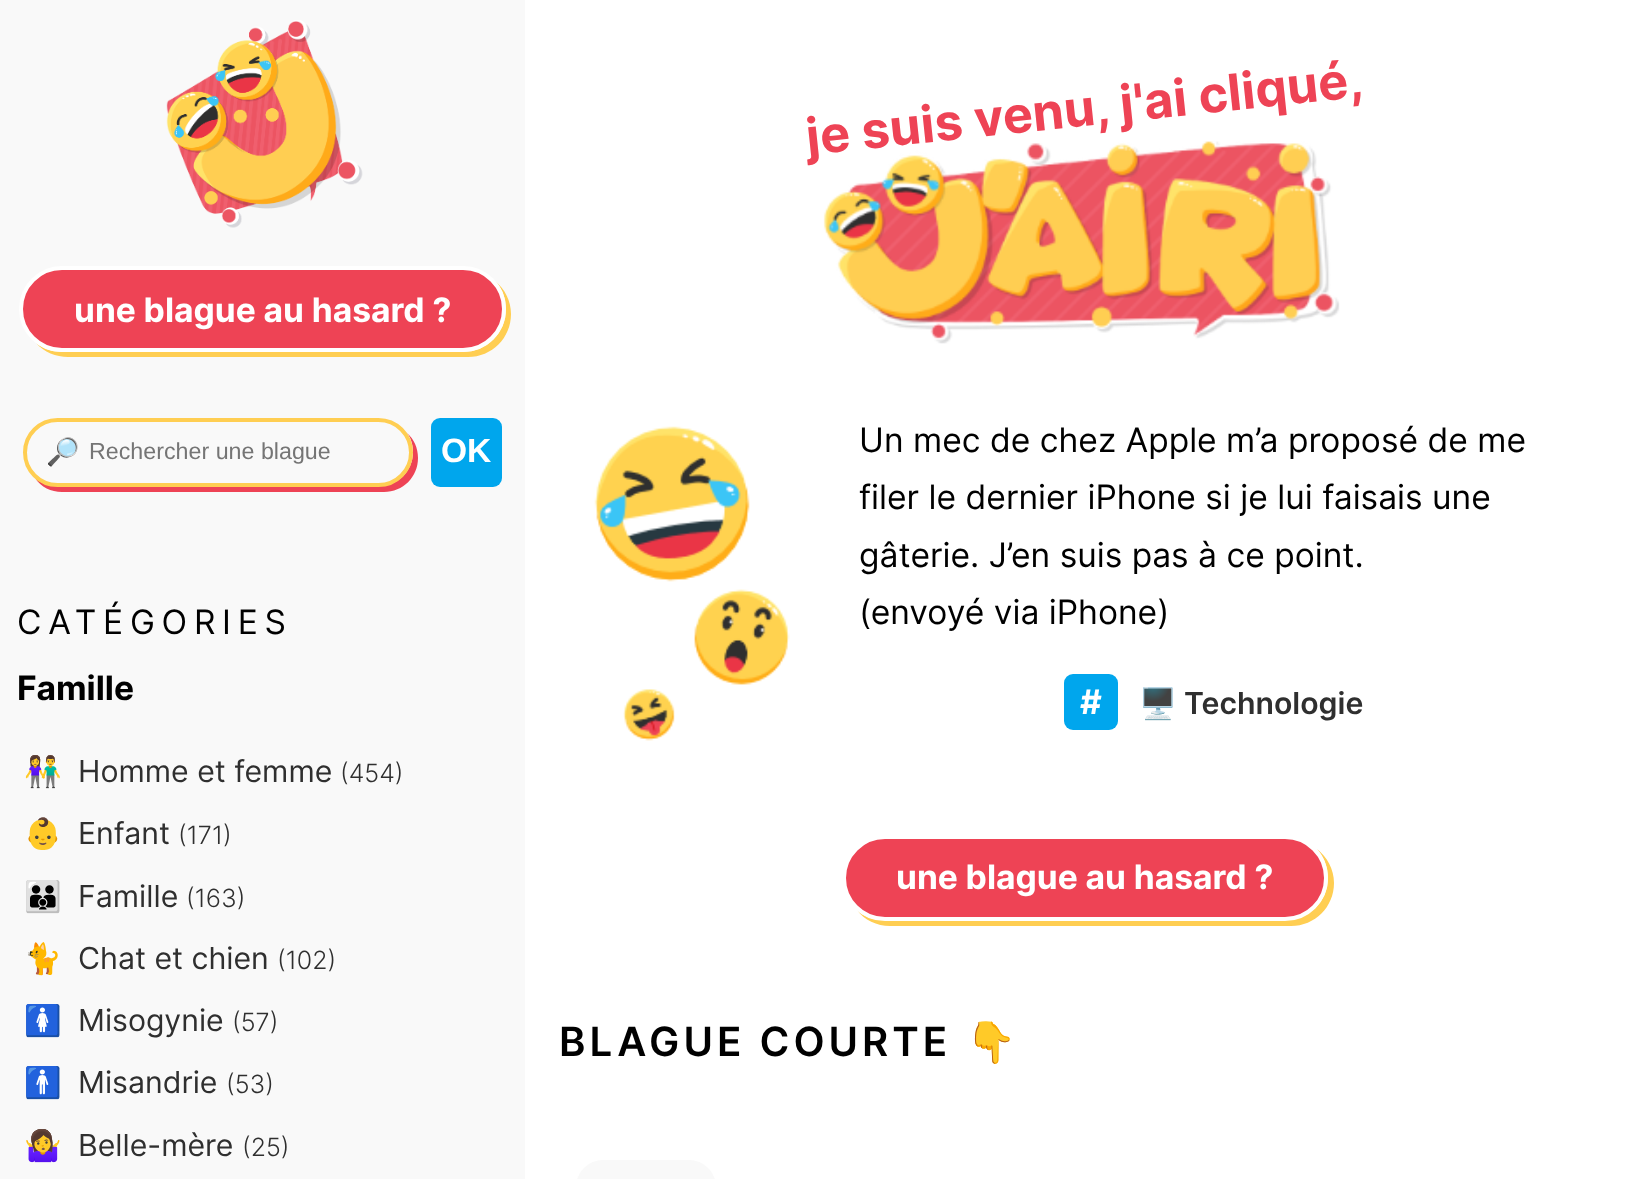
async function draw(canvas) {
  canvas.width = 1645
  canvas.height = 1179
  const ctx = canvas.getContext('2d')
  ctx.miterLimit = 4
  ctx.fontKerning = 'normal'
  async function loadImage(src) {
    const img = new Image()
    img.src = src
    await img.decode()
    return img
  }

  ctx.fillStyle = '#fff'
  ctx.fillRect(0, 0, 1645, 1179)
  ctx.fillStyle = '#f9f9f9'
  ctx.fillRect(0, 0, 525, 1179)
  ctx.drawImage(await loadImage('image0.png'), 166, 20, 197, 208)
  ctx.fillStyle = '#ffce52'
  ctx.beginPath()
  ctx.moveTo(36, 343)
  ctx.bezierCurveTo(44, 352, 56, 357, 68, 357)
  ctx.lineTo(468, 357)
  ctx.bezierCurveTo(492, 357, 511, 338, 511, 314)
  ctx.bezierCurveTo(511, 301, 505, 289, 495, 281)
  ctx.bezierCurveTo(502, 288, 506, 298, 506, 309)
  ctx.bezierCurveTo(506, 333, 487, 352, 463, 352)
  ctx.lineTo(62, 352)
  ctx.bezierCurveTo(52, 352, 44, 349, 36, 343)
  ctx.closePath()
  ctx.fill()
  ctx.fillStyle = '#ee4355'
  ctx.beginPath()
  ctx.roundRect(21, 268, 483, 82, 41)
  ctx.fill()
  ctx.strokeStyle = '#fff'
  ctx.lineWidth = 4
  ctx.stroke()
  ctx.font = 'bold 33.6px Inter'
  ctx.fillStyle = '#fff'
  ctx.fillText('une blague au hasard ?', 74, 322)
  ctx.fillStyle = '#ee4355'
  ctx.beginPath()
  ctx.moveTo(35, 478)
  ctx.bezierCurveTo(41, 487, 51, 492, 62, 492)
  ctx.lineTo(384, 492)
  ctx.bezierCurveTo(403, 492, 418, 477, 418, 458)
  ctx.bezierCurveTo(418, 448, 414, 439, 407, 433)
  ctx.bezierCurveTo(411, 438, 413, 445, 413, 452)
  ctx.bezierCurveTo(413, 471, 398, 486, 379, 486)
  ctx.lineTo(57, 486)
  ctx.bezierCurveTo(48, 486, 41, 483, 35, 478)
  ctx.closePath()
  ctx.fill()
  ctx.beginPath()
  ctx.roundRect(25, 420, 386, 65, 32.5)
  ctx.strokeStyle = '#ffce52'
  ctx.stroke()
  ctx.font = '27px Noto Color Emoji'
  ctx.fillStyle = '#000'
  ctx.fillText('🔎', 46, 461)
  ctx.font = '23.25px Liberation Sans'
  ctx.fillStyle = '#757575'
  ctx.fillText('Rechercher une blague', 89, 459)
  ctx.fillStyle = '#00a6ed'
  ctx.beginPath()
  ctx.roundRect(431, 418, 71, 69, 9)
  ctx.fill()
  ctx.font = 'bold 33.6px Liberation Sans'
  ctx.fillStyle = '#fff'
  ctx.fillText('OK', 441, 462)
  ctx.letterSpacing = '6.75px'
  ctx.font = '33.6px Inter'
  ctx.fillStyle = '#000'
  ctx.fillText('CATÉGORIES', 17, 634)
  ctx.letterSpacing = '0px'
  ctx.font = 'bold 33.6px Inter'
  ctx.fillText('Famille', 17, 700)
  ctx.font = '30.25px Noto Color Emoji'
  ctx.fillStyle = '#2f2f2f'
  ctx.fillText('👫', 24, 782)
  ctx.font = '30.25px Inter'
  ctx.fillText('Homme et femme', 78, 782)
  ctx.font = '300 25px Inter'
  ctx.fillText('(454)', 340, 782)
  ctx.font = '30.25px Noto Color Emoji'
  ctx.fillText('👶', 24, 844)
  ctx.font = '30.25px Inter'
  ctx.fillText('Enfant', 78, 844)
  ctx.font = '300 25px Inter'
  ctx.fillText('(171)', 178, 844)
  ctx.font = '30.25px Noto Color Emoji'
  ctx.fillText('👪', 24, 907)
  ctx.font = '30.25px Inter'
  ctx.fillText('Famille', 78, 907)
  ctx.font = '300 25px Inter'
  ctx.fillText('(163)', 186, 907)
  ctx.font = '30.25px Noto Color Emoji'
  ctx.fillText('🐈', 24, 969)
  ctx.font = '30.25px Inter'
  ctx.fillText('Chat et chien', 78, 969)
  ctx.font = '300 25px Inter'
  ctx.fillText('(102)', 277, 969)
  ctx.font = '30.25px Noto Color Emoji'
  ctx.fillText('🚺', 24, 1031)
  ctx.font = '30.25px Inter'
  ctx.fillText('Misogynie', 78, 1031)
  ctx.font = '300 25px Inter'
  ctx.fillText('(57)', 232, 1031)
  ctx.font = '30.25px Noto Color Emoji'
  ctx.fillText('🚹', 24, 1093)
  ctx.font = '30.25px Inter'
  ctx.fillText('Misandrie', 78, 1093)
  ctx.font = '300 25px Inter'
  ctx.fillText('(53)', 226, 1093)
  ctx.font = '30.25px Noto Color Emoji'
  ctx.fillText('🤷‍♀️', 24, 1156)
  ctx.font = '30.25px Inter'
  ctx.fillText('Belle-mère', 78, 1156)
  ctx.font = '300 25px Inter'
  ctx.fillText('(25)', 242, 1156)
  ctx.drawImage(await loadImage('image1.png'), 823, 141, 517, 203)
  ctx.font = 'bold 50.4px Inter'
  ctx.fillStyle = '#ee4355'
  ctx.save()
  ctx.translate(808, 155)
  ctx.rotate(-6 * Math.PI / 180)
  ctx.fillText('je suis venu, j\'ai cliqué,', 0, 0)
  ctx.restore()
  ctx.drawImage(await loadImage('image2.png'), 594, 426, 156, 156)
  ctx.drawImage(await loadImage('image3.png'), 694, 589, 96, 96)
  ctx.drawImage(await loadImage('image4.png'), 623, 689, 52, 52)
  ctx.font = '33.6px Inter'
  ctx.fillStyle = '#000'
  ctx.fillText('Un mec de chez Apple m’a proposé de me', 859, 452)
  ctx.fillText('filer le dernier iPhone si je lui faisais une', 859, 509)
  ctx.fillText('gâterie. J’en suis pas à ce point.', 859, 567)
  ctx.fillText('(envoyé via iPhone)', 859, 624)
  ctx.fillStyle = '#00a6ed'
  ctx.beginPath()
  ctx.roundRect(1064, 674, 54, 56, 9)
  ctx.fill()
  ctx.font = 'bold 33.6px Inter'
  ctx.fillStyle = '#fff'
  ctx.fillText('#', 1080, 714)
  ctx.font = 'bold 30.25px Noto Color Emoji'
  ctx.fillStyle = '#2f2f2f'
  ctx.fillText('🖥️', 1139, 714)
  ctx.font = '600 30.25px Inter'
  ctx.fillText('Technologie', 1184, 714)
  ctx.fillStyle = '#ffce52'
  ctx.beginPath()
  ctx.moveTo(857, 910)
  ctx.bezierCurveTo(864, 920, 877, 926, 890, 926)
  ctx.lineTo(1291, 926)
  ctx.bezierCurveTo(1315, 926, 1334, 907, 1334, 883)
  ctx.bezierCurveTo(1334, 869, 1327, 857, 1317, 849)
  ctx.bezierCurveTo(1324, 857, 1328, 867, 1328, 878)
  ctx.bezierCurveTo(1328, 901, 1309, 920, 1285, 920)
  ctx.lineTo(885, 920)
  ctx.bezierCurveTo(874, 920, 864, 917, 857, 910)
  ctx.closePath()
  ctx.fill()
  ctx.fillStyle = '#ee4355'
  ctx.beginPath()
  ctx.roundRect(844, 837, 482, 82, 41)
  ctx.fill()
  ctx.strokeStyle = '#fff'
  ctx.stroke()
  ctx.font = 'bold 33.6px Inter'
  ctx.fillStyle = '#fff'
  ctx.fillText('une blague au hasard ?', 896, 889)
  ctx.letterSpacing = '4px'
  ctx.font = '600 40.25px Inter'
  ctx.fillStyle = '#000'
  ctx.fillText('BLAGUE COURTE', 559, 1056)
  ctx.font = 'bold 40.25px Noto Color Emoji'
  ctx.fillText('👇', 966, 1056)
  ctx.fillStyle = '#ffce52'
  ctx.beginPath()
  ctx.moveTo(588, 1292)
  ctx.bezierCurveTo(594, 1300, 604, 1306, 616, 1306)
  ctx.lineTo(686, 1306)
  ctx.bezierCurveTo(705, 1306, 721, 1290, 721, 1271)
  ctx.lineTo(721, 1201)
  ctx.bezierCurveTo(721, 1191, 716, 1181, 709, 1175)
  ctx.bezierCurveTo(713, 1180, 716, 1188, 716, 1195)
  ctx.lineTo(716, 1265)
  ctx.bezierCurveTo(716, 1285, 700, 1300, 681, 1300)
  ctx.lineTo(611, 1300)
  ctx.bezierCurveTo(602, 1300, 594, 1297, 588, 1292)
  ctx.closePath()
  ctx.fill()
  ctx.fillStyle = '#f9f9f9'
  ctx.beginPath()
  ctx.roundRect(576, 1160, 140, 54, 35)
  ctx.fill()
}

draw(document.querySelector('canvas'))
